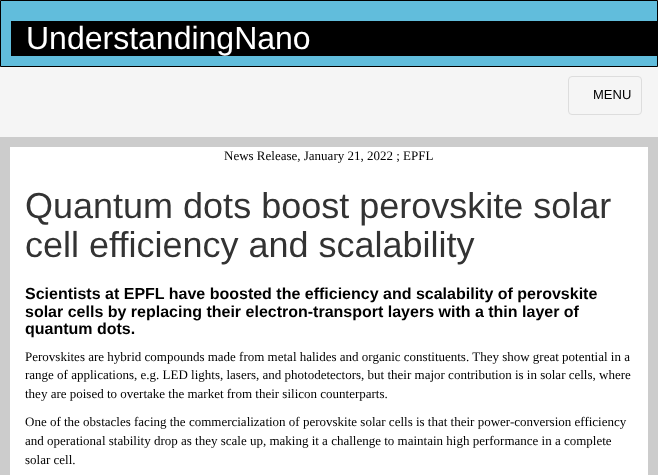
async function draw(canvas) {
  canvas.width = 658
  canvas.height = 475
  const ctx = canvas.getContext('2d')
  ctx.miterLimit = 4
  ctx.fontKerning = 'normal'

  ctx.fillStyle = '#f5f5f5'
  ctx.fillRect(0, 0, 658, 475)
  ctx.fillStyle = '#61bddc'
  ctx.beginPath()
  ctx.rect(0.5, 0.5, 657, 66)
  ctx.fill()
  ctx.strokeStyle = '#000'
  ctx.stroke()
  ctx.fillStyle = '#000'
  ctx.fillRect(11, 21, 646, 35)
  ctx.font = '32px Liberation Sans'
  ctx.fillStyle = '#fff'
  ctx.fillText('UnderstandingNano', 26, 49)
  ctx.beginPath()
  ctx.roundRect(568.5, 76.5, 73, 38, 3.5)
  ctx.strokeStyle = '#ddd'
  ctx.stroke()
  ctx.font = '13px Liberation Sans'
  ctx.fillStyle = '#000'
  ctx.fillText('MENU', 593, 99)
  ctx.fillStyle = '#fff'
  ctx.beginPath()
  ctx.rect(5, 142, 648, 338)
  ctx.fill()
  ctx.strokeStyle = '#ccc'
  ctx.lineWidth = 10
  ctx.stroke()
  ctx.font = '13px Liberation Serif'
  ctx.fillStyle = '#000'
  ctx.fillText('News Release, January 21, 2022 ; EPFL', 224, 160)
  ctx.font = '36px Liberation Sans'
  ctx.fillStyle = '#333'
  ctx.fillText('Quantum dots boost perovskite solar', 25, 218)
  ctx.fillText('cell efficiency and scalability', 25, 257)
  ctx.font = 'bold 16px Liberation Sans'
  ctx.fillStyle = '#000'
  ctx.fillText('Scientists at EPFL have boosted the efficiency and scalability of perovskite', 25, 299)
  ctx.fillText('solar cells by replacing their electron-transport layers with a thin layer of', 25, 317)
  ctx.fillText('quantum dots.', 25, 334)
  ctx.font = '13px Liberation Serif'
  ctx.fillText('Perovskites are hybrid compounds made from metal halides and organic constituents. They show great potential in a', 25, 361)
  ctx.fillText('range of applications, e.g. LED lights, lasers, and photodetectors, but their major contribution is in solar cells, where', 25, 379)
  ctx.fillText('they are poised to overtake the market from their silicon counterparts.', 25, 398)
  ctx.fillText('One of the obstacles facing the commercialization of perovskite solar cells is that their power-conversion efficiency', 25, 426)
  ctx.fillText('and operational stability drop as they scale up, making it a challenge to maintain high performance in a complete', 25, 445)
  ctx.fillText('solar cell.', 25, 464)
}

draw(document.querySelector('canvas'))
